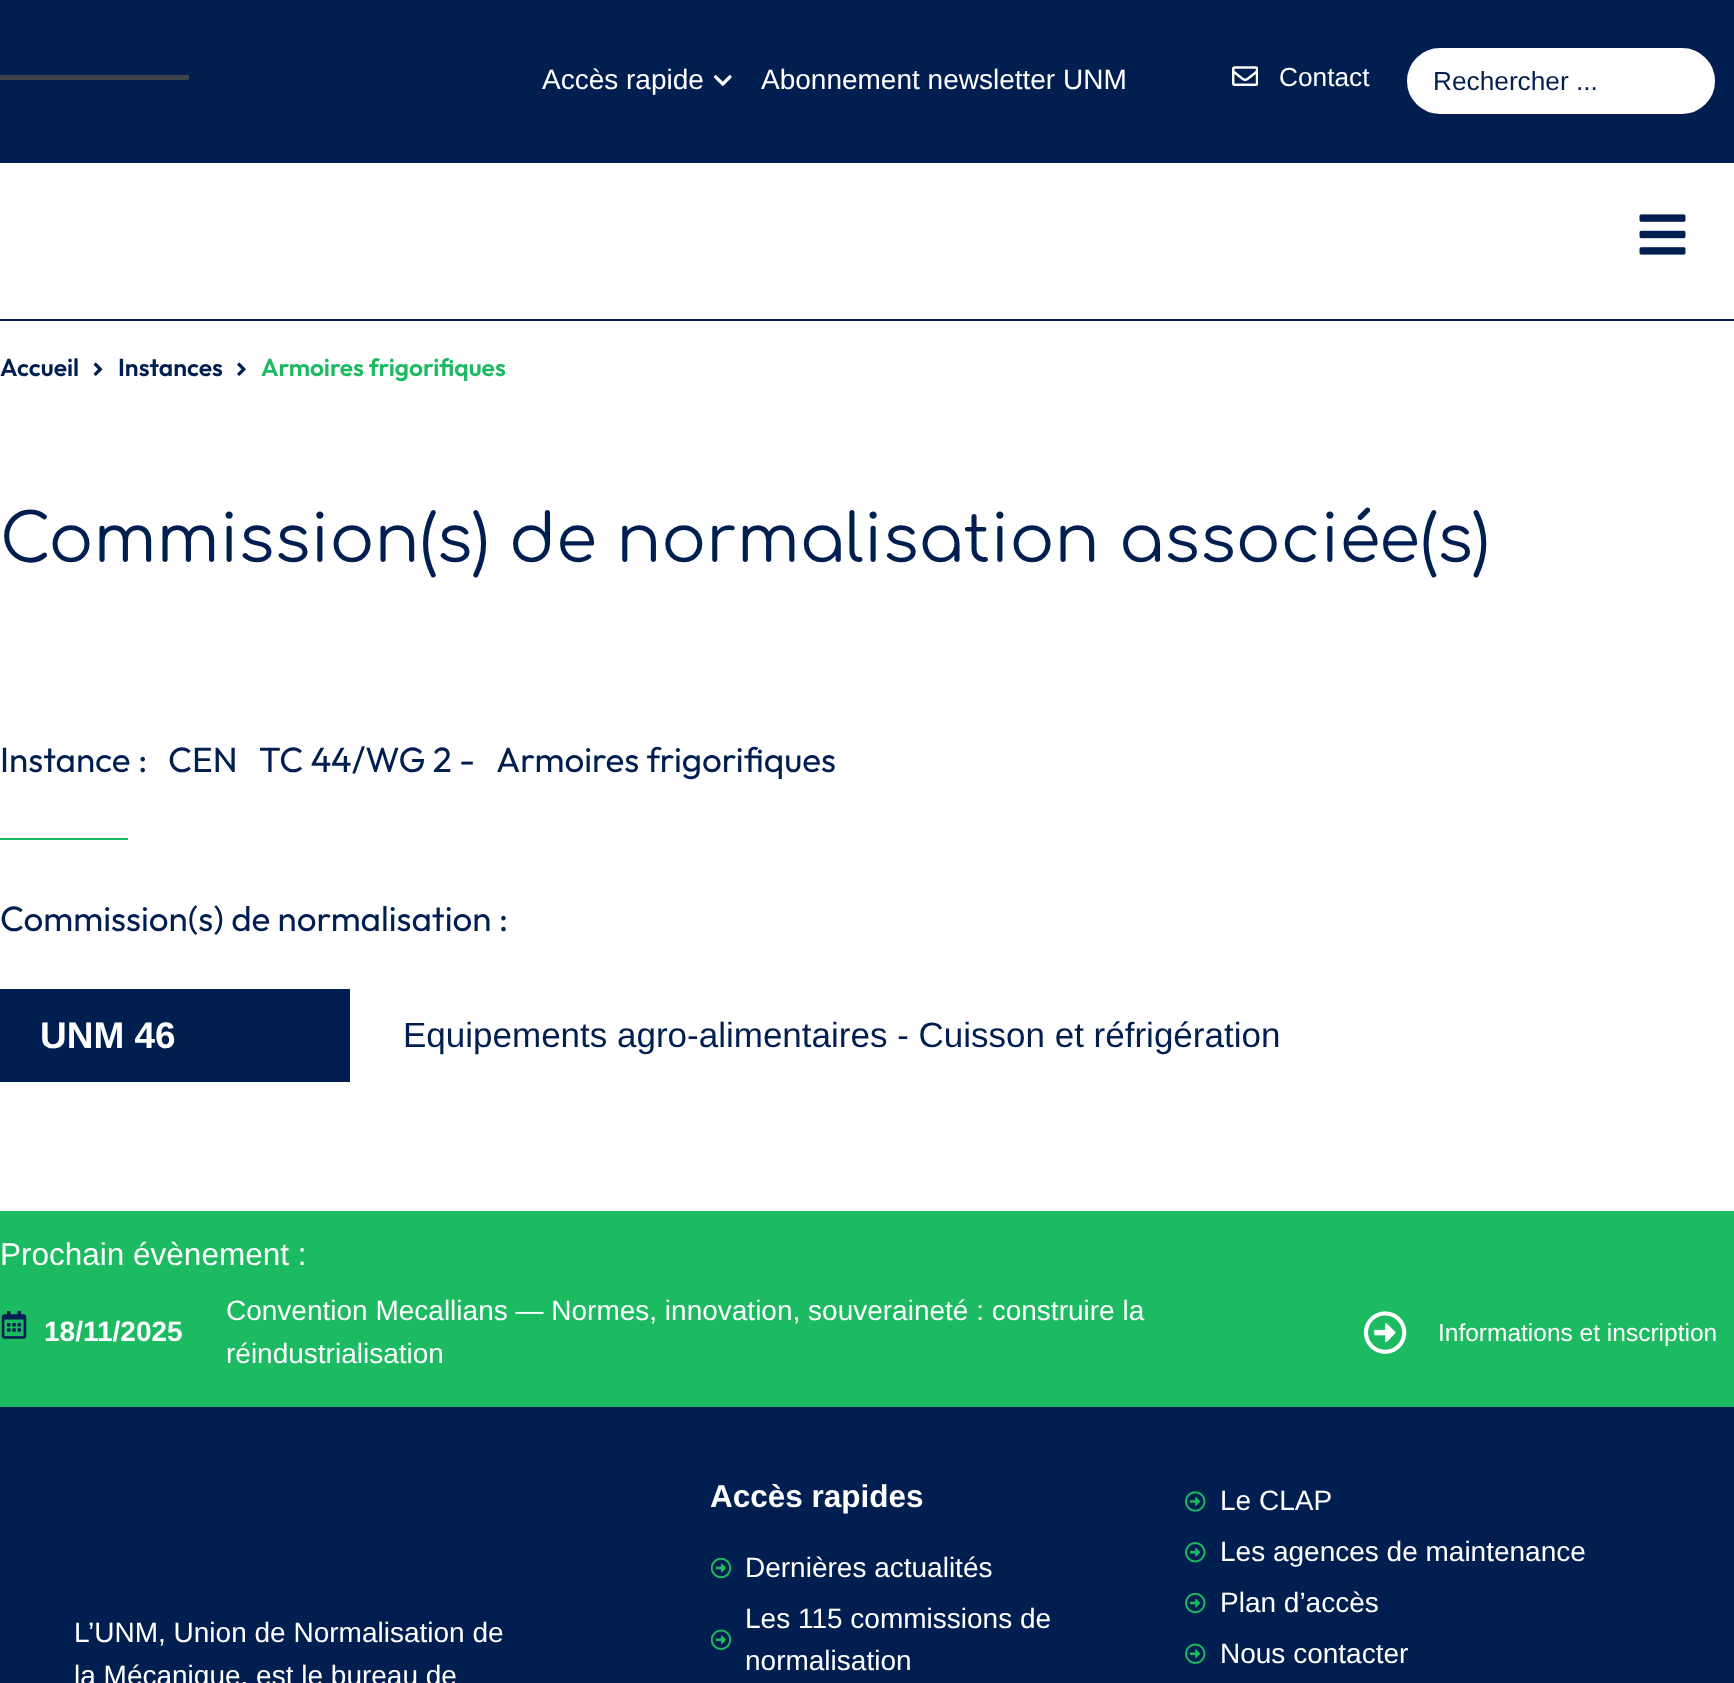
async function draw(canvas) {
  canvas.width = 1734
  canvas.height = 1683
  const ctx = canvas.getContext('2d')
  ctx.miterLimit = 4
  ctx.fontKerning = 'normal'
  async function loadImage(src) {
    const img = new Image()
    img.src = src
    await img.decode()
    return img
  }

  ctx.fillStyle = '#fff'
  ctx.fillRect(0, 0, 1734, 1683)
  ctx.fillStyle = '#001e50'
  ctx.fillRect(0, 0, 1734, 163)
  ctx.fillRect(0, 319, 1734, 2)
  ctx.drawImage(await loadImage('image0.png'), 1639, 214, 47, 41)
  ctx.fillStyle = '#3f444b'
  ctx.fillRect(0, 75, 189, 5)
  ctx.font = '28px Liberation Sans'
  ctx.fillStyle = '#fff'
  ctx.fillText('Accès rapide', 542, 89)
  ctx.drawImage(await loadImage('image1.png'), 713, 75, 19, 11)
  ctx.fillText('Abonnement newsletter UNM', 761, 89)
  ctx.drawImage(await loadImage('image2.png'), 1232, 66, 26, 20)
  ctx.font = '26.25px Liberation Sans'
  ctx.fillText('Contact', 1279, 86)
  ctx.beginPath()
  ctx.roundRect(1406, 47, 310, 68, 34)
  ctx.fill()
  ctx.strokeStyle = '#001e50'
  ctx.lineWidth = 2
  ctx.stroke()
  ctx.fillStyle = '#001e50'
  ctx.fillText('Rechercher ...', 1433, 90)
  ctx.font = '600 24.5px Outfit'
  ctx.fillText('Accueil', 0, 376)
  ctx.drawImage(await loadImage('image3.png'), 93, 362, 10, 14)
  ctx.fillText('Instances', 118, 376)
  ctx.drawImage(await loadImage('image4.png'), 237, 362, 9, 14)
  ctx.fillStyle = '#1cba61'
  ctx.fillText('Armoires frigorifiques', 261, 376)
  ctx.font = '66.5px Comfortaa'
  ctx.fillStyle = '#001e50'
  ctx.fillText('Commission(s) de normalisation associée(s)', 0, 562)
  ctx.font = '35px Outfit'
  ctx.fillText('Instance :', 0, 772)
  ctx.fillText('CEN', 168, 772)
  ctx.fillText('TC 44/WG 2 -', 259, 772)
  ctx.fillText('Armoires frigorifiques', 496, 772)
  ctx.fillStyle = '#1cba61'
  ctx.fillRect(0, 838, 128, 2)
  ctx.fillStyle = '#001e50'
  ctx.fillText('Commission(s) de normalisation :', 0, 931)
  ctx.fillRect(0, 989, 350, 93)
  ctx.font = 'bold 37px Liberation Sans'
  ctx.fillStyle = '#fff'
  ctx.fillText('UNM 46', 40, 1048)
  ctx.font = '35px Liberation Sans'
  ctx.fillStyle = '#001e50'
  ctx.fillText('Equipements agro-alimentaires - Cuisson et réfrigération', 403, 1047)
  ctx.fillStyle = '#1cba61'
  ctx.fillRect(0, 1211, 1734, 196)
  ctx.font = '31.5px Liberation Sans'
  ctx.fillStyle = '#fff'
  ctx.fillText('Prochain évènement :', 0, 1265)
  ctx.drawImage(await loadImage('image5.png'), 1, 1311, 26, 28)
  ctx.font = 'bold 28px Liberation Sans'
  ctx.fillText('18/11/2025', 44, 1341)
  ctx.font = '28px Liberation Sans'
  ctx.fillText('Convention Mecallians — Normes, innovation, souveraineté : construire la', 226, 1320)
  ctx.fillText('réindustrialisation', 226, 1363)
  ctx.drawImage(await loadImage('image6.png'), 1363, 1311, 44, 43)
  ctx.font = '24.5px Liberation Sans'
  ctx.fillText('Informations et inscription', 1438, 1341)
  ctx.fillStyle = '#001e50'
  ctx.fillRect(0, 1407, 1734, 276)
  ctx.font = '28px Liberation Sans'
  ctx.fillStyle = '#fff'
  ctx.fillText('L’UNM, Union de Normalisation de', 74, 1642)
  ctx.fillText('la Mécanique, est le bureau de', 74, 1685)
  ctx.font = 'bold 31.5px Liberation Sans'
  ctx.fillText('Accès rapides', 710, 1507)
  ctx.drawImage(await loadImage('image7.png'), 711, 1558, 21, 21)
  ctx.font = '28px Liberation Sans'
  ctx.fillText('Dernières actualités', 745, 1577)
  ctx.drawImage(await loadImage('image8.png'), 711, 1629, 21, 21)
  ctx.fillText('Les 115 commissions de', 745, 1628)
  ctx.fillText('normalisation', 745, 1670)
  ctx.drawImage(await loadImage('image9.png'), 1185, 1491, 21, 21)
  ctx.fillText('Le CLAP', 1220, 1510)
  ctx.drawImage(await loadImage('image10.png'), 1185, 1542, 21, 21)
  ctx.fillText('Les agences de maintenance', 1220, 1561)
  ctx.drawImage(await loadImage('image11.png'), 1185, 1593, 21, 21)
  ctx.fillText('Plan d’accès', 1220, 1612)
  ctx.drawImage(await loadImage('image12.png'), 1185, 1643, 21, 21)
  ctx.fillText('Nous contacter', 1220, 1663)
}

draw(document.querySelector('canvas'))
